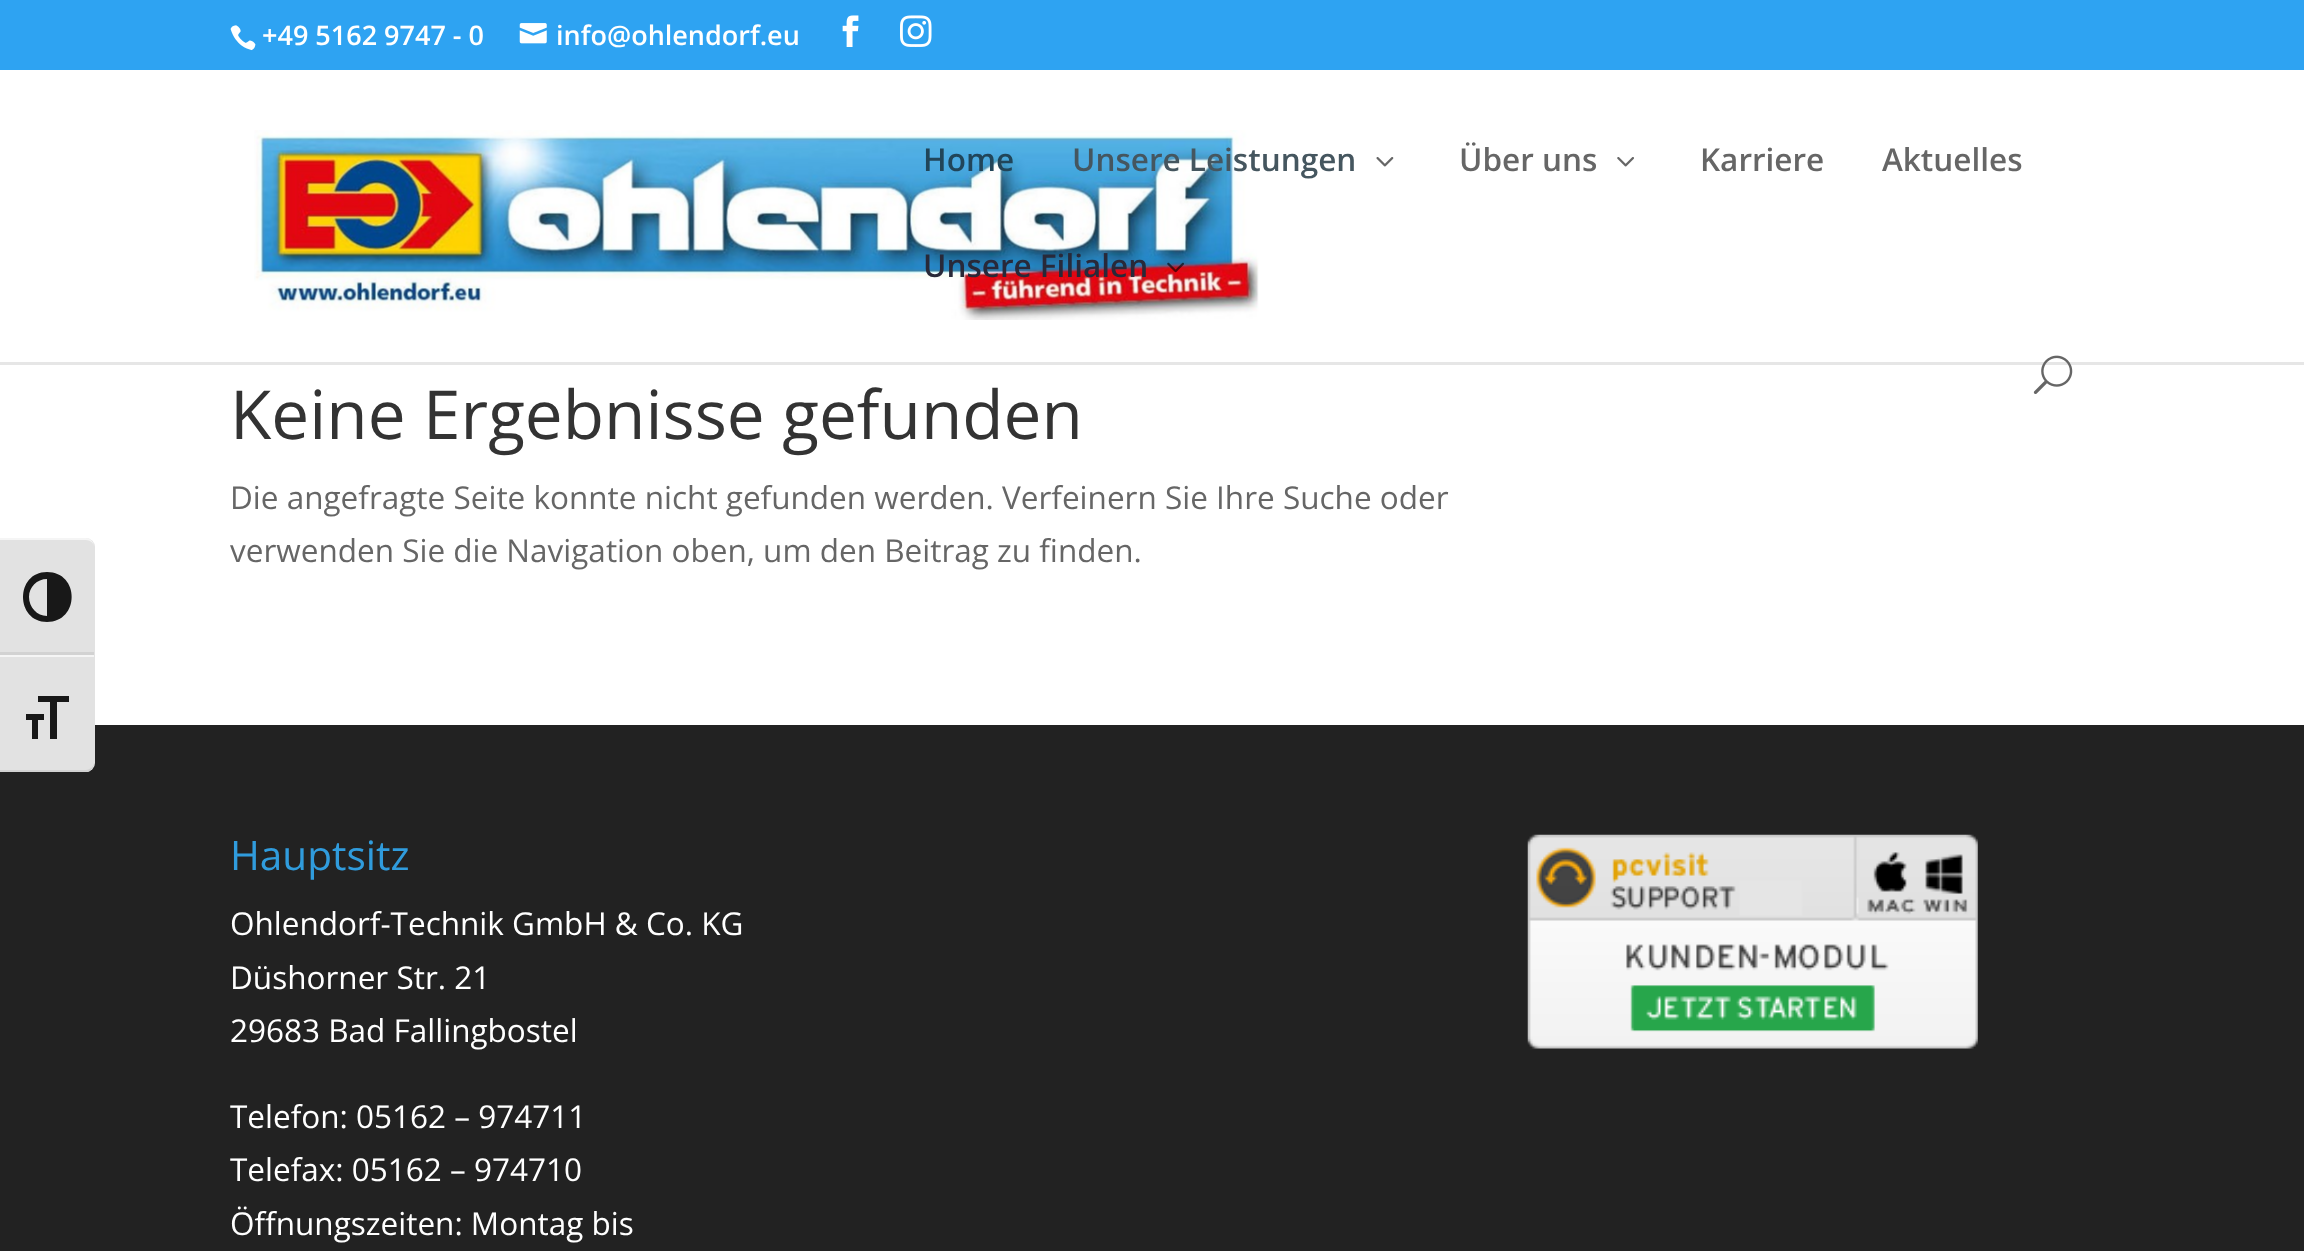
async function draw(canvas) {
  canvas.width = 2304
  canvas.height = 1251
  const ctx = canvas.getContext('2d')
  ctx.miterLimit = 4
  ctx.fontKerning = 'normal'
  async function loadImage(src) {
    const img = new Image()
    img.src = src
    await img.decode()
    return img
  }

  ctx.fillStyle = '#fff'
  ctx.fillRect(0, 0, 2304, 1251)
  ctx.fillStyle = '#e2e2e2'
  ctx.beginPath()
  ctx.roundRect(0, 538, 95, 117, [0, 9, 0, 0])
  ctx.fill()
  ctx.fillStyle = '#f5f5f5'
  ctx.beginPath()
  ctx.moveTo(0, 540)
  ctx.lineTo(86, 540)
  ctx.bezierCurveTo(90, 540, 94, 543, 94, 547)
  ctx.bezierCurveTo(94, 542, 90, 538, 86, 538)
  ctx.lineTo(0, 538)
  ctx.closePath()
  ctx.fill()
  ctx.fillStyle = '#d2d2d2'
  ctx.fillRect(0, 652, 94, 3)
  ctx.fillStyle = '#181818'
  ctx.beginPath()
  ctx.moveTo(47, 572)
  ctx.bezierCurveTo(15, 572, 15, 622, 47, 622)
  ctx.bezierCurveTo(80, 622, 80, 572, 47, 572)
  ctx.closePath()
  ctx.moveTo(29, 597)
  ctx.bezierCurveTo(29, 587, 37, 579, 47, 579)
  ctx.lineTo(47, 616)
  ctx.bezierCurveTo(37, 616, 29, 607, 29, 597)
  ctx.closePath()
  ctx.fill()
  ctx.fillStyle = '#222'
  ctx.fillRect(0, 725, 2304, 526)
  ctx.fillStyle = '#e2e2e2'
  ctx.beginPath()
  ctx.roundRect(0, 655, 95, 117, [0, 0, 9, 0])
  ctx.fill()
  ctx.fillStyle = '#f5f5f5'
  ctx.fillRect(0, 655, 94, 2)
  ctx.fillStyle = '#d2d2d2'
  ctx.beginPath()
  ctx.moveTo(88, 772)
  ctx.bezierCurveTo(91, 771, 94, 767, 94, 763)
  ctx.bezierCurveTo(94, 766, 90, 770, 86, 770)
  ctx.lineTo(0, 770)
  ctx.lineTo(0, 772)
  ctx.closePath()
  ctx.fill()
  ctx.fillStyle = '#181818'
  ctx.beginPath()
  ctx.moveTo(26, 714)
  ctx.lineTo(44, 714)
  ctx.lineTo(44, 720)
  ctx.lineTo(38, 720)
  ctx.lineTo(38, 739)
  ctx.lineTo(32, 739)
  ctx.lineTo(32, 720)
  ctx.lineTo(26, 720)
  ctx.closePath()
  ctx.moveTo(69, 702)
  ctx.lineTo(57, 702)
  ctx.lineTo(57, 739)
  ctx.lineTo(50, 739)
  ctx.lineTo(50, 702)
  ctx.lineTo(38, 702)
  ctx.lineTo(38, 696)
  ctx.lineTo(69, 696)
  ctx.closePath()
  ctx.fill()
  ctx.fillStyle = '#2ea3f2'
  ctx.fillRect(0, 0, 2304, 70)
  ctx.drawImage(await loadImage('image0.png'), 230, 25, 26, 26)
  ctx.font = '600 27px Open Sans'
  ctx.fillStyle = '#fff'
  ctx.fillText('+49 5162 9747 - 0', 262, 45)
  ctx.drawImage(await loadImage('image1.png'), 519, 23, 28, 21)
  ctx.fillText('info@ohlendorf.eu', 556, 45)
  ctx.drawImage(await loadImage('image2.png'), 842, 15, 17, 32)
  ctx.drawImage(await loadImage('image3.png'), 900, 15, 32, 32)
  ctx.fillStyle = '#e6e6e6'
  ctx.fillRect(0, 362, 2304, 3)
  ctx.drawImage(await loadImage('image4.png'), 254, 130, 1005, 190)
  ctx.font = '600 31.5px Open Sans'
  ctx.fillStyle = '#214559'
  ctx.fillText('Home', 923, 171)
  ctx.fillStyle = '#45565f'
  ctx.fillText('Unsere Leistungen', 1072, 171)
  ctx.drawImage(await loadImage('image5.png'), 1376, 157, 18, 10)
  ctx.fillStyle = '#666'
  ctx.fillText('Über uns', 1459, 171)
  ctx.drawImage(await loadImage('image6.png'), 1617, 157, 17, 10)
  ctx.fillText('Karriere', 1700, 171)
  ctx.fillText('Aktuelles', 1882, 171)
  ctx.fillStyle = '#282939'
  ctx.fillText('Unsere Filialen', 923, 277)
  ctx.drawImage(await loadImage('image7.png'), 1167, 262, 17, 11)
  ctx.drawImage(await loadImage('image8.png'), 2033, 355, 40, 39)
  ctx.font = '67.5px Open Sans'
  ctx.fillStyle = '#333'
  ctx.fillText('Keine Ergebnisse gefunden', 230, 439)
  ctx.font = '31.5px Open Sans'
  ctx.fillStyle = '#666'
  ctx.fillText('Die angefragte Seite konnte nicht gefunden werden. Verfeinern Sie Ihre Suche oder', 230, 509)
  ctx.fillText('verwenden Sie die Navigation oben, um den Beitrag zu finden.', 230, 562)
  ctx.font = '40.5px Open Sans'
  ctx.fillStyle = '#309cdd'
  ctx.fillText('Hauptsitz', 230, 870)
  ctx.font = '31.5px Open Sans'
  ctx.fillStyle = '#fff'
  ctx.fillText('Ohlendorf-Technik GmbH & Co. KG', 230, 935)
  ctx.fillText('Düshorner Str. 21', 230, 989)
  ctx.fillText('29683 Bad Fallingbostel', 230, 1042)
  ctx.fillText('Telefon: 05162 – 974711', 230, 1128)
  ctx.fillText('Telefax: 05162 – 974710', 230, 1181)
  ctx.fillText('Öffnungszeiten: Montag bis', 230, 1235)
  ctx.drawImage(await loadImage('image9.png'), 1527, 834, 451, 215)
}

draw(document.querySelector('canvas'))
